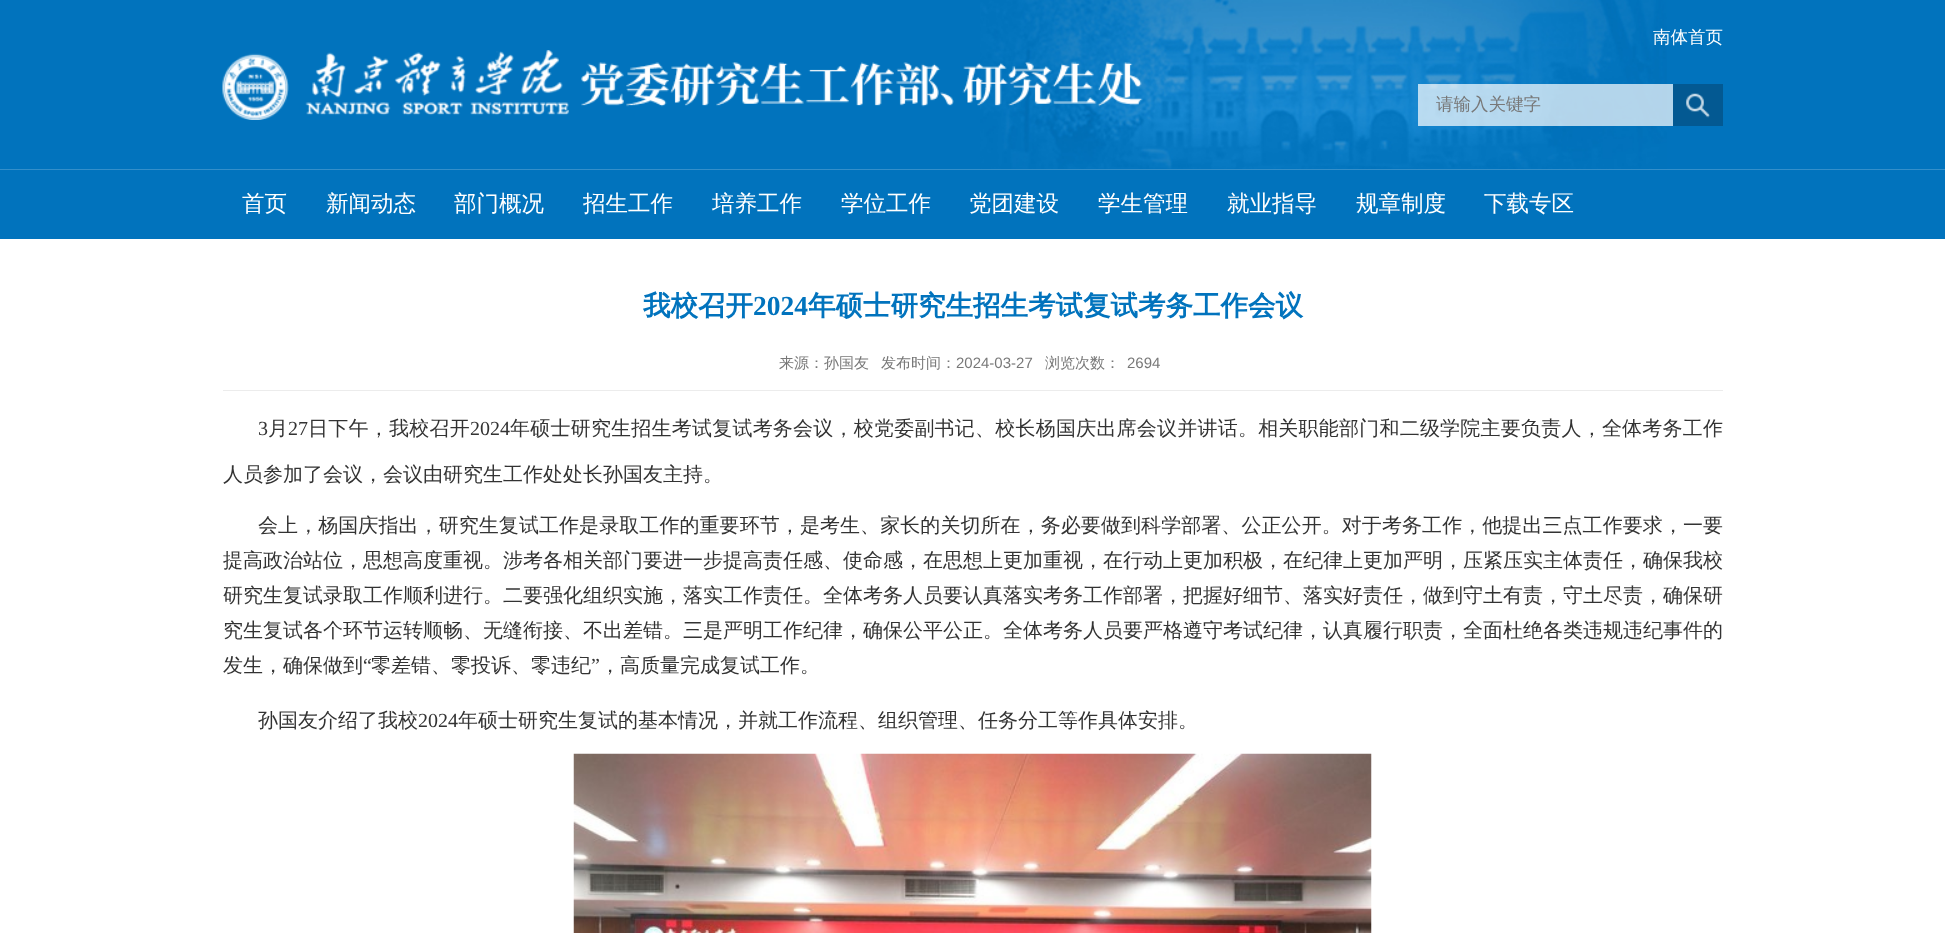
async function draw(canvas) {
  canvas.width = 1945
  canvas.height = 933
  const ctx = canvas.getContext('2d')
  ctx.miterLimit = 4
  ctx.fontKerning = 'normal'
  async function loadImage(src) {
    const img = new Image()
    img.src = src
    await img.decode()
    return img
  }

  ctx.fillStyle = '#fff'
  ctx.fillRect(0, 0, 1945, 933)
  ctx.fillStyle = '#0173bd'
  ctx.fillRect(0, 0, 1945, 169)
  ctx.fillStyle = '#348fca'
  ctx.fillRect(0, 169, 1945, 1)
  ctx.drawImage(await loadImage('image0.png'), 980, 0, 687, 169)
  ctx.drawImage(await loadImage('image1.png'), 222, 50, 347, 70)
  ctx.drawImage(await loadImage('image2.png'), 581, 62, 562, 45)
  ctx.font = '500 17.5px WenQuanYi Zen Hei'
  ctx.fillStyle = '#fff'
  ctx.fillText('南体首页', 1653, 43)
  ctx.fillStyle = '#ffffffb3'
  ctx.fillRect(1418, 84, 255, 42)
  ctx.fillStyle = '#787878'
  ctx.fillText('请输入关键字', 1436, 110)
  ctx.fillStyle = '#035992'
  ctx.fillRect(1673, 84, 50, 42)
  ctx.drawImage(await loadImage('image3.png'), 1686, 93, 24, 25)
  ctx.fillStyle = '#0173bd'
  ctx.fillRect(0, 170, 1945, 69)
  ctx.font = '500 22.5px WenQuanYi Zen Hei'
  ctx.fillStyle = '#fff'
  ctx.fillText('首页', 242, 211)
  ctx.fillText('新闻动态', 326, 211)
  ctx.fillText('部门概况', 454, 211)
  ctx.fillText('招生工作', 583, 211)
  ctx.fillText('培养工作', 712, 211)
  ctx.fillText('学位工作', 841, 211)
  ctx.fillText('党团建设', 969, 211)
  ctx.fillText('学生管理', 1098, 211)
  ctx.fillText('就业指导', 1227, 211)
  ctx.fillText('规章制度', 1356, 211)
  ctx.fillText('下载专区', 1484, 211)
  ctx.font = 'bold 27.5px WenQuanYi Zen Hei'
  ctx.fillStyle = '#0173bd'
  ctx.fillText('我校召开', 643, 315)
  ctx.font = 'bold 27.5px Liberation Serif'
  ctx.fillText('2024', 753, 315)
  ctx.font = 'bold 27.5px WenQuanYi Zen Hei'
  ctx.fillText('年硕士研究生招生考试复试考务工作会议', 808, 315)
  ctx.fillStyle = '#ececec'
  ctx.fillRect(223, 390, 1500, 1)
  ctx.font = '500 15px WenQuanYi Zen Hei'
  ctx.fillStyle = '#787878'
  ctx.fillText('来源：孙国友', 779, 368)
  ctx.fillText('发布时间：', 881, 368)
  ctx.font = '15px Liberation Sans'
  ctx.fillText('2024-03-27', 956, 368)
  ctx.font = '500 15px WenQuanYi Zen Hei'
  ctx.fillText('浏览次数：', 1045, 368)
  ctx.font = '15px Liberation Sans'
  ctx.fillText('2694', 1127, 368)
  ctx.font = '20px Liberation Serif'
  ctx.fillStyle = '#333'
  ctx.fillText('3', 258, 435)
  ctx.font = '500 20px WenQuanYi Zen Hei'
  ctx.fillText('月', 268, 435)
  ctx.font = '20px Liberation Serif'
  ctx.fillText('27', 288, 435)
  ctx.letterSpacing = '0.25px'
  ctx.font = '500 20px WenQuanYi Zen Hei'
  ctx.fillText('日下午，我校召开', 308, 435)
  ctx.letterSpacing = '0px'
  ctx.font = '20px Liberation Serif'
  ctx.fillText('2024', 470, 435)
  ctx.letterSpacing = '0.22px'
  ctx.font = '500 20px WenQuanYi Zen Hei'
  ctx.fillText('年硕士研究生招生考试复试考务会议，校党委副书记、校长杨国庆出席会议并讲话。相关职能部门和二级学院主要负责人，全体考务工作', 510, 435)
  ctx.letterSpacing = '0px'
  ctx.fillText('人员参加了会议，会议由研究生工作处处长孙国友主持。', 223, 481)
  ctx.letterSpacing = '0.07px'
  ctx.fillText('会上，杨国庆指出，研究生复试工作是录取工作的重要环节，是考生、家长的关切所在，务必要做到科学部署、公正公开。对于考务工作，他提出三点工作要求，一要', 258, 532)
  ctx.letterSpacing = '0px'
  ctx.fillText('提高政治站位，思想高度重视。涉考各相关部门要进一步提高责任感、使命感，在思想上更加重视，在行动上更加积极，在纪律上更加严明，压紧压实主体责任，确保我校', 223, 567)
  ctx.fillText('研究生复试录取工作顺利进行。二要强化组织实施，落实工作责任。全体考务人员要认真落实考务工作部署，把握好细节、落实好责任，做到守土有责，守土尽责，确保研', 223, 602)
  ctx.fillText('究生复试各个环节运转顺畅、无缝衔接、不出差错。三是严明工作纪律，确保公平公正。全体考务人员要严格遵守考试纪律，认真履行职责，全面杜绝各类违规违纪事件的', 223, 637)
  ctx.fillText('发生，确保做到', 223, 672)
  ctx.font = '20px Liberation Serif'
  ctx.fillText('“', 363, 672)
  ctx.font = '500 20px WenQuanYi Zen Hei'
  ctx.fillText('零差错、零投诉、零违纪', 371, 672)
  ctx.font = '20px Liberation Serif'
  ctx.fillText('”', 591, 672)
  ctx.font = '500 20px WenQuanYi Zen Hei'
  ctx.fillText('，高质量完成复试工作。', 600, 672)
  ctx.fillText('孙国友介绍了我校', 258, 727)
  ctx.font = '20px Liberation Serif'
  ctx.fillText('2024', 418, 727)
  ctx.font = '500 20px WenQuanYi Zen Hei'
  ctx.fillText('年硕士研究生复试的基本情况，并就工作流程、组织管理、任务分工等作具体安排。', 458, 727)
  ctx.drawImage(await loadImage('image4.png'), 573, 753, 799, 180)
}

draw(document.querySelector('canvas'))
